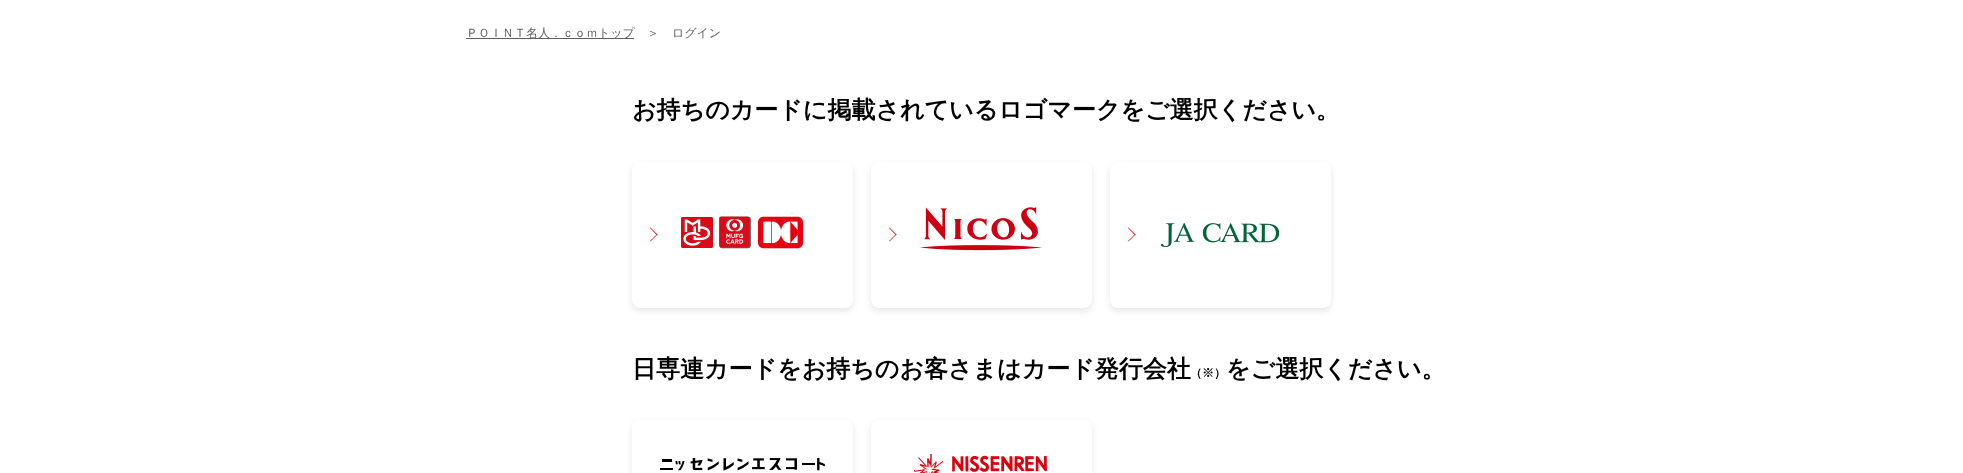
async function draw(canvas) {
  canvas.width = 1963
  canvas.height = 473
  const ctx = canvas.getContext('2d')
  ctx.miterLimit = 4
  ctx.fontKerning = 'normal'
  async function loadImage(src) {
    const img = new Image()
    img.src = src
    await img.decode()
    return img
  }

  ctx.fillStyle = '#fff'
  ctx.fillRect(0, 0, 1963, 473)
  ctx.fillStyle = '#606060'
  ctx.fillRect(466, 38, 168, 1)
  ctx.font = '500 12px WenQuanYi Zen Hei'
  ctx.fillText('ＰＯＩＮＴ名人．ｃｏｍトップ', 466, 37)
  ctx.fillText('＞', 647, 37)
  ctx.fillText('ログイン', 672, 37)
  ctx.font = 'bold 24px WenQuanYi Zen Hei'
  ctx.fillStyle = '#000'
  ctx.fillText('お持ちのカードに掲載されているロゴマークをご選択ください。', 632, 118)
  ctx.fillStyle = '#0000001a'
  ctx.filter = 'blur(3px)'
  ctx.beginPath()
  ctx.roundRect(632, 165, 221, 146, 8)
  ctx.fill()
  ctx.filter = 'none'
  ctx.fillStyle = '#fff'
  ctx.beginPath()
  ctx.roundRect(632, 162, 221, 146, 8)
  ctx.fill()
  ctx.fillStyle = '#e71d19'
  ctx.beginPath()
  ctx.moveTo(650.5, 227.5)
  ctx.lineTo(657.5, 234.5)
  ctx.lineTo(657, 235.5)
  ctx.lineTo(650, 228)
  ctx.closePath()
  ctx.fill()
  ctx.beginPath()
  ctx.moveTo(657, 234)
  ctx.lineTo(657.5, 234.5)
  ctx.lineTo(650.5, 241.5)
  ctx.lineTo(650, 241)
  ctx.closePath()
  ctx.fill()
  ctx.drawImage(await loadImage('image0.png'), 681, 216, 122, 33)
  ctx.fillStyle = '#0000001a'
  ctx.filter = 'blur(3px)'
  ctx.beginPath()
  ctx.roundRect(871, 165, 221, 146, 8)
  ctx.fill()
  ctx.filter = 'none'
  ctx.fillStyle = '#fff'
  ctx.beginPath()
  ctx.roundRect(871, 162, 221, 146, 8)
  ctx.fill()
  ctx.fillStyle = '#e71d19'
  ctx.beginPath()
  ctx.moveTo(889.5, 227.5)
  ctx.lineTo(896.5, 234.5)
  ctx.lineTo(896, 235.5)
  ctx.lineTo(889, 228)
  ctx.closePath()
  ctx.fill()
  ctx.beginPath()
  ctx.moveTo(896, 234)
  ctx.lineTo(896.5, 234.5)
  ctx.lineTo(889.5, 241.5)
  ctx.lineTo(889, 241)
  ctx.closePath()
  ctx.fill()
  ctx.drawImage(await loadImage('image1.png'), 920, 207, 122, 44)
  ctx.fillStyle = '#0000001a'
  ctx.filter = 'blur(3px)'
  ctx.beginPath()
  ctx.roundRect(1110, 165, 221, 146, 8)
  ctx.fill()
  ctx.filter = 'none'
  ctx.fillStyle = '#fff'
  ctx.beginPath()
  ctx.roundRect(1110, 162, 221, 146, 8)
  ctx.fill()
  ctx.fillStyle = '#e71d19'
  ctx.beginPath()
  ctx.moveTo(1128.5, 227.5)
  ctx.lineTo(1135.5, 234.5)
  ctx.lineTo(1135, 235.5)
  ctx.lineTo(1128, 228)
  ctx.closePath()
  ctx.fill()
  ctx.beginPath()
  ctx.moveTo(1135, 234)
  ctx.lineTo(1135.5, 234.5)
  ctx.lineTo(1128.5, 241.5)
  ctx.lineTo(1128, 241)
  ctx.closePath()
  ctx.fill()
  ctx.drawImage(await loadImage('image2.png'), 1160, 223, 120, 24)
  ctx.fillStyle = '#000'
  ctx.fillText('日専連カードをお持ちのお客さまはカード発行会社', 632, 377)
  ctx.font = 'bold 12px WenQuanYi Zen Hei'
  ctx.fillText('（※）', 1190, 377)
  ctx.font = 'bold 24px WenQuanYi Zen Hei'
  ctx.fillText('をご選択ください。', 1226, 377)
  ctx.fillStyle = '#0000001a'
  ctx.filter = 'blur(3px)'
  ctx.beginPath()
  ctx.roundRect(632, 423, 221, 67, 8)
  ctx.fill()
  ctx.filter = 'none'
  ctx.fillStyle = '#fff'
  ctx.beginPath()
  ctx.roundRect(632, 420, 221, 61, 8)
  ctx.fill()
  ctx.drawImage(await loadImage('image3.png'), 660, 458, 165, 13)
  ctx.fillStyle = '#0000001a'
  ctx.filter = 'blur(3px)'
  ctx.beginPath()
  ctx.roundRect(871, 423, 221, 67, 8)
  ctx.fill()
  ctx.filter = 'none'
  ctx.fillStyle = '#fff'
  ctx.beginPath()
  ctx.roundRect(871, 420, 221, 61, 8)
  ctx.fill()
  ctx.drawImage(await loadImage('image4.png'), 914, 454, 133, 19)
}

draw(document.querySelector('canvas'))
